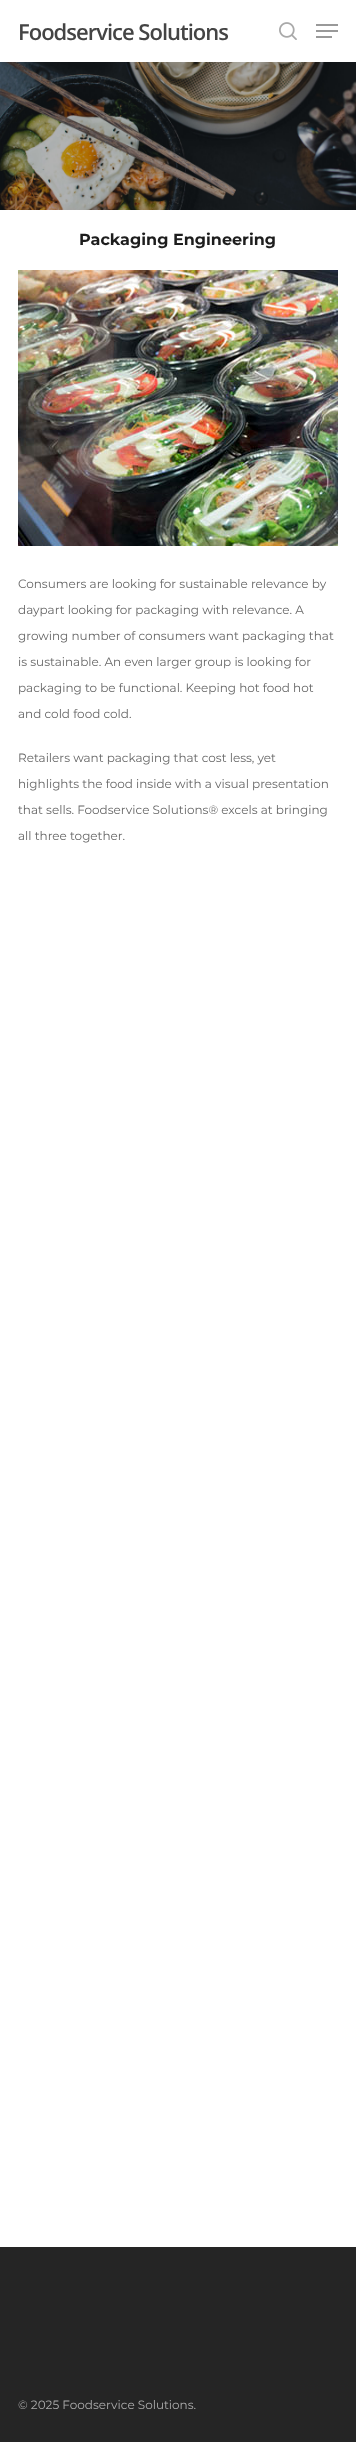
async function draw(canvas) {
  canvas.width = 356
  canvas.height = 2442
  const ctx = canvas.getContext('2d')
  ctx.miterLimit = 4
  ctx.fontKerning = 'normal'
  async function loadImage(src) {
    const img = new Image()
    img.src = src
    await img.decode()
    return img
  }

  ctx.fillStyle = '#fff'
  ctx.fillRect(0, 0, 356, 2442)
  ctx.letterSpacing = '-1px'
  ctx.font = '600 22px Open Sans'
  ctx.fillStyle = '#444'
  ctx.fillText('Foodservice Solutions', 18, 40)
  ctx.drawImage(await loadImage('image0.png'), 279, 22, 18, 18)
  ctx.fillStyle = '#999'
  ctx.fillRect(316, 24, 22, 2)
  ctx.fillRect(316, 36, 16, 2)
  ctx.fillRect(316, 30, 22, 2)
  ctx.drawImage(await loadImage('image1.png'), 0, 62, 356, 148)
  ctx.letterSpacing = '0px'
  ctx.font = 'bold 16px Montserrat'
  ctx.fillStyle = '#1d1d1d'
  ctx.fillText('Packaging Engineering', 79, 245)
  ctx.drawImage(await loadImage('image2.png'), 18, 270, 320, 276)
  ctx.font = '12px Montserrat'
  ctx.fillStyle = '#676767'
  ctx.fillText('Consumers are looking for sustainable relevance by', 18, 588)
  ctx.fillText('daypart looking for packaging with relevance. A', 18, 614)
  ctx.fillText('growing number of consumers want packaging that', 18, 640)
  ctx.fillText('is sustainable. An even larger group is looking for', 18, 666)
  ctx.fillText('packaging to be functional. Keeping hot food hot', 18, 692)
  ctx.fillText('and cold food cold.', 18, 718)
  ctx.fillText('Retailers want packaging that cost less, yet', 18, 762)
  ctx.fillText('highlights the food inside with a visual presentation', 18, 788)
  ctx.fillText('that sells. Foodservice Solutions® excels at bringing', 18, 814)
  ctx.fillText('all three together.', 18, 840)
  ctx.fillStyle = '#252525'
  ctx.fillRect(0, 2247, 356, 195)
  ctx.fillStyle = '#acacac'
  ctx.fillText('© 2025 Foodservice Solutions.', 18, 2409)
}

draw(document.querySelector('canvas'))
